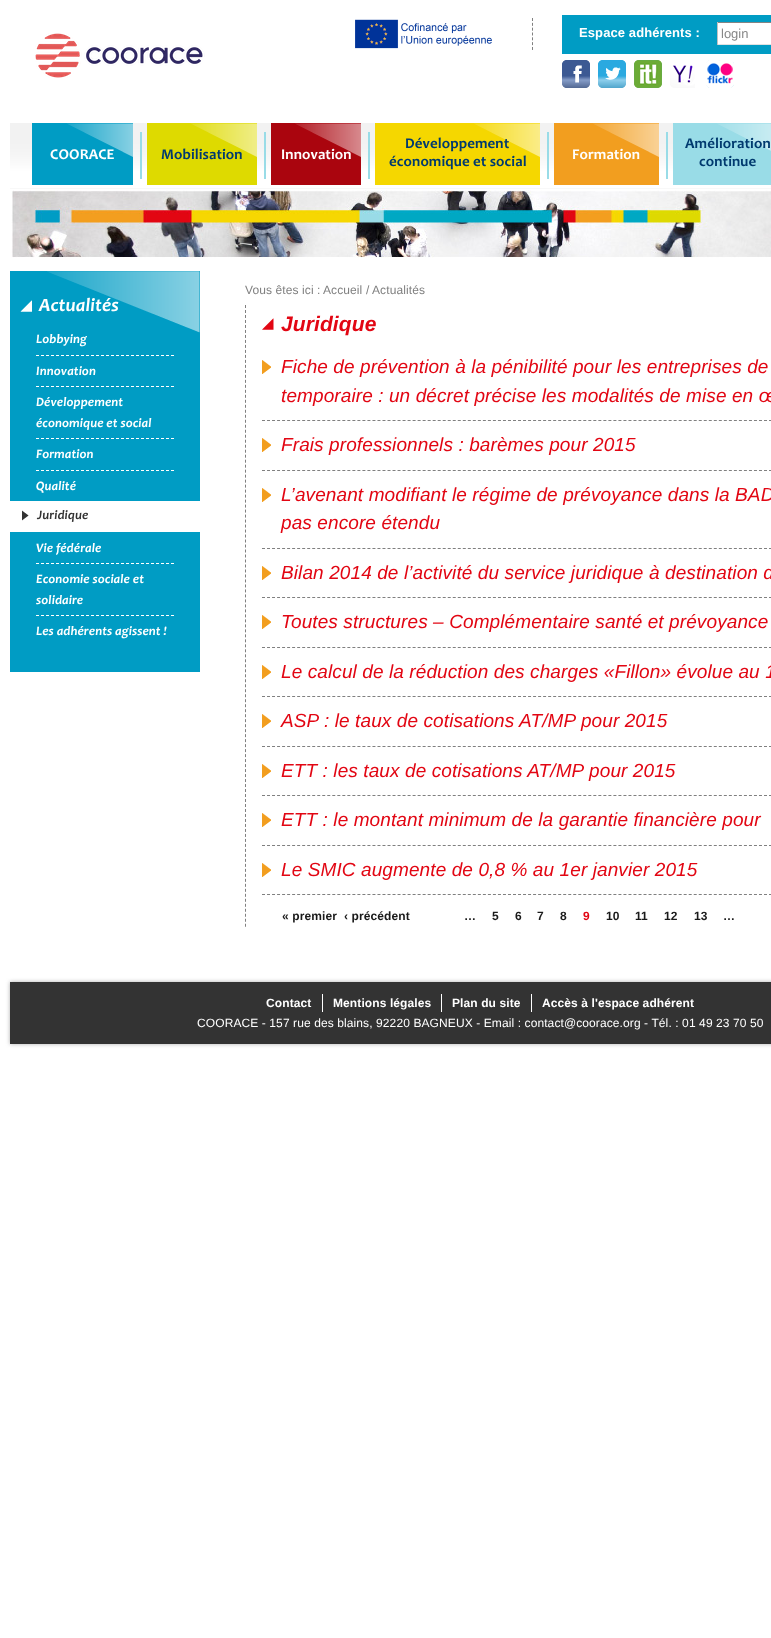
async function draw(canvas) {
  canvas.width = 771
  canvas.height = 1638
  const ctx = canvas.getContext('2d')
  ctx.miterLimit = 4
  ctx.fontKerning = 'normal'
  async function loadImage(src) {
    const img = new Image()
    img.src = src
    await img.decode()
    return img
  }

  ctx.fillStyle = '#fff'
  ctx.fillRect(0, 0, 771, 1638)
  ctx.drawImage(await loadImage('image0.png'), 35, 33, 170, 45)
  ctx.beginPath()
  ctx.moveTo(532.5, 18)
  ctx.lineTo(532.5, 50)
  ctx.strokeStyle = '#808080'
  ctx.setLineDash([3, 1.83])
  ctx.stroke()
  ctx.drawImage(await loadImage('image1.png'), 355, 19, 137, 30)
  ctx.fillStyle = '#009cc4'
  ctx.fillRect(562, 15, 209, 39)
  ctx.letterSpacing = '0.1px'
  ctx.font = 'bold 13px Liberation Sans'
  ctx.fillStyle = '#fff'
  ctx.fillText('Espace adhérents :', 579, 37)
  ctx.fillRect(718, 23, 53, 21)
  ctx.fillStyle = '#848484'
  ctx.fillRect(717, 22, 54, 1)
  ctx.fillStyle = '#e1e1e1'
  ctx.fillRect(717, 44, 54, 1)
  ctx.fillStyle = '#c1c1c1'
  ctx.fillRect(717, 22, 1, 23)
  ctx.letterSpacing = '0px'
  ctx.font = '13px Liberation Sans'
  ctx.fillStyle = '#888'
  ctx.fillText('login', 721, 38)
  ctx.drawImage(await loadImage('image2.png'), 562, 60, 28, 28)
  ctx.drawImage(await loadImage('image3.png'), 598, 60, 28, 28)
  ctx.drawImage(await loadImage('image4.png'), 634, 60, 28, 28)
  ctx.drawImage(await loadImage('image5.png'), 670, 65, 25, 23)
  ctx.drawImage(await loadImage('image6.png'), 706, 60, 28, 28)
  ctx.drawImage(await loadImage('image7.png'), 10, 123, 761, 66)
  ctx.fillStyle = '#009cc4'
  ctx.fillRect(32, 123, 101, 62)
  ctx.drawImage(await loadImage('image8.png'), 67, 123, 66, 34)
  ctx.letterSpacing = '0.1px'
  ctx.font = 'bold 15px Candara'
  ctx.fillStyle = '#fff'
  ctx.fillText('COORACE', 50, 159)
  ctx.fillStyle = '#99dce7'
  ctx.fillRect(140, 132, 2, 47)
  ctx.fillStyle = '#deda00'
  ctx.fillRect(147, 123, 110, 62)
  ctx.drawImage(await loadImage('image9.png'), 191, 123, 66, 34)
  ctx.fillStyle = '#003a6f'
  ctx.fillText('Mobilisation', 161, 159)
  ctx.fillStyle = '#99dce7'
  ctx.fillRect(264, 132, 2, 47)
  ctx.fillStyle = '#aa050e'
  ctx.fillRect(271, 123, 90, 62)
  ctx.drawImage(await loadImage('image10.png'), 295, 123, 66, 34)
  ctx.fillStyle = '#fff'
  ctx.fillText('Innovation', 281, 159)
  ctx.fillStyle = '#99dce7'
  ctx.fillRect(368, 132, 2, 47)
  ctx.fillStyle = '#f5d700'
  ctx.fillRect(375, 123, 165, 62)
  ctx.drawImage(await loadImage('image11.png'), 474, 123, 66, 34)
  ctx.fillStyle = '#003a6f'
  ctx.fillText('Développement', 405, 148)
  ctx.fillText('économique et social', 389, 166)
  ctx.fillStyle = '#99dce7'
  ctx.fillRect(547, 132, 2, 47)
  ctx.fillStyle = '#f29e1f'
  ctx.fillRect(554, 123, 105, 62)
  ctx.drawImage(await loadImage('image12.png'), 593, 123, 66, 34)
  ctx.fillStyle = '#fff'
  ctx.fillText('Formation', 572, 159)
  ctx.fillStyle = '#99dce7'
  ctx.fillRect(666, 132, 2, 47)
  ctx.fillRect(673, 123, 98, 62)
  ctx.drawImage(await loadImage('image13.png'), 717, 123, 54, 28)
  ctx.fillStyle = '#003a6f'
  ctx.fillText('Amélioration', 685, 148)
  ctx.fillText('continue', 699, 166)
  ctx.drawImage(await loadImage('image14.png'), 11, 190, 760, 68)
  ctx.fillStyle = '#009cc4'
  ctx.fillRect(10, 271, 190, 401)
  ctx.drawImage(await loadImage('image15.png'), 47, 271, 153, 62)
  ctx.drawImage(await loadImage('image16.png'), 20, 300, 12, 12)
  ctx.font = 'italic bold 19px Candara'
  ctx.fillStyle = '#fff'
  ctx.fillText('Actualités', 39, 311)
  ctx.beginPath()
  ctx.moveTo(36, 355.5)
  ctx.lineTo(174, 355.5)
  ctx.strokeStyle = '#fff'
  ctx.setLineDash([3, 2])
  ctx.stroke()
  ctx.font = 'italic bold 13px Candara'
  ctx.fillText('Lobbying', 36, 343)
  ctx.beginPath()
  ctx.moveTo(36, 386.5)
  ctx.lineTo(174, 386.5)
  ctx.stroke()
  ctx.fillText('Innovation', 36, 375)
  ctx.beginPath()
  ctx.moveTo(36, 438.5)
  ctx.lineTo(174, 438.5)
  ctx.stroke()
  ctx.fillText('Développement', 36, 406)
  ctx.fillText('économique et social', 36, 427)
  ctx.beginPath()
  ctx.moveTo(36, 470.5)
  ctx.lineTo(174, 470.5)
  ctx.stroke()
  ctx.fillText('Formation', 36, 458)
  ctx.fillText('Qualité', 36, 490)
  ctx.fillRect(10, 501, 190, 31)
  ctx.drawImage(await loadImage('image17.png'), 22, 510, 7, 11)
  ctx.fillStyle = '#333'
  ctx.fillText('Juridique', 37, 519)
  ctx.beginPath()
  ctx.moveTo(36, 563.5)
  ctx.lineTo(174, 563.5)
  ctx.stroke()
  ctx.fillStyle = '#fff'
  ctx.fillText('Vie fédérale', 36, 552)
  ctx.beginPath()
  ctx.moveTo(36, 615.5)
  ctx.lineTo(174, 615.5)
  ctx.stroke()
  ctx.fillText('Economie sociale et', 36, 583)
  ctx.fillText('solidaire', 36, 604)
  ctx.fillText('Les adhérents agissent !', 36, 635)
  ctx.font = '12px Liberation Sans'
  ctx.fillStyle = '#808080'
  ctx.fillText('Vous êtes ici :', 245, 294)
  ctx.fillText('Accueil', 323, 294)
  ctx.fillText('/', 366, 294)
  ctx.fillText('Actualités', 372, 294)
  ctx.beginPath()
  ctx.moveTo(245.5, 305)
  ctx.lineTo(245.5, 927)
  ctx.strokeStyle = '#808080'
  ctx.setLineDash([3, 1.99])
  ctx.stroke()
  ctx.drawImage(await loadImage('image18.png'), 262, 318, 12, 12)
  ctx.font = 'italic bold 21px Liberation Sans'
  ctx.fillStyle = '#e20613'
  ctx.fillText('Juridique', 281, 331)
  ctx.beginPath()
  ctx.moveTo(262, 420.5)
  ctx.lineTo(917, 420.5)
  ctx.setLineDash([3, 2.02])
  ctx.stroke()
  ctx.drawImage(await loadImage('image19.png'), 262, 360, 9, 14)
  ctx.font = 'italic 19px Liberation Sans'
  ctx.fillText('Fiche de prévention à la pénibilité pour les entreprises de', 281, 373)
  ctx.fillText('temporaire : un décret précise les modalités de mise en œ', 281, 402)
  ctx.beginPath()
  ctx.moveTo(262, 470.5)
  ctx.lineTo(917, 470.5)
  ctx.stroke()
  ctx.drawImage(await loadImage('image19.png'), 262, 438, 9, 14)
  ctx.fillText('Frais professionnels : barèmes pour 2015', 281, 451)
  ctx.beginPath()
  ctx.moveTo(262, 548.5)
  ctx.lineTo(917, 548.5)
  ctx.stroke()
  ctx.drawImage(await loadImage('image19.png'), 262, 488, 9, 14)
  ctx.fillText('L’avenant modifiant le régime de prévoyance dans la BAD', 281, 501)
  ctx.fillText('pas encore étendu', 281, 529)
  ctx.beginPath()
  ctx.moveTo(262, 597.5)
  ctx.lineTo(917, 597.5)
  ctx.stroke()
  ctx.drawImage(await loadImage('image19.png'), 262, 566, 9, 14)
  ctx.fillText('Bilan 2014 de l’activité du service juridique à destination d', 281, 579)
  ctx.beginPath()
  ctx.moveTo(262, 647.5)
  ctx.lineTo(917, 647.5)
  ctx.stroke()
  ctx.drawImage(await loadImage('image19.png'), 262, 615, 9, 14)
  ctx.fillText('Toutes structures – Complémentaire santé et prévoyance', 281, 628)
  ctx.beginPath()
  ctx.moveTo(262, 696.5)
  ctx.lineTo(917, 696.5)
  ctx.stroke()
  ctx.drawImage(await loadImage('image19.png'), 262, 665, 9, 14)
  ctx.fillText('Le calcul de la réduction des charges «Fillon» évolue au 1', 281, 678)
  ctx.beginPath()
  ctx.moveTo(262, 746.5)
  ctx.lineTo(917, 746.5)
  ctx.stroke()
  ctx.drawImage(await loadImage('image19.png'), 262, 714, 9, 14)
  ctx.fillText('ASP : le taux de cotisations AT/MP pour 2015', 281, 727)
  ctx.beginPath()
  ctx.moveTo(262, 795.5)
  ctx.lineTo(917, 795.5)
  ctx.stroke()
  ctx.drawImage(await loadImage('image19.png'), 262, 764, 9, 14)
  ctx.fillText('ETT : les taux de cotisations AT/MP pour 2015', 281, 777)
  ctx.beginPath()
  ctx.moveTo(262, 845.5)
  ctx.lineTo(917, 845.5)
  ctx.stroke()
  ctx.drawImage(await loadImage('image19.png'), 262, 813, 9, 14)
  ctx.fillText('ETT : le montant minimum de la garantie financière pour', 281, 826)
  ctx.beginPath()
  ctx.moveTo(262, 894.5)
  ctx.lineTo(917, 894.5)
  ctx.stroke()
  ctx.drawImage(await loadImage('image19.png'), 262, 863, 9, 14)
  ctx.fillText('Le SMIC augmente de 0,8 % au 1er janvier 2015', 281, 876)
  ctx.font = 'bold 12px Liberation Sans'
  ctx.fillStyle = '#1a1a1a'
  ctx.fillText('« premier', 282, 920)
  ctx.fillText('‹ précédent', 344, 920)
  ctx.fillText('…', 464, 920)
  ctx.fillText('5', 492, 920)
  ctx.fillText('6', 515, 920)
  ctx.fillText('7', 537, 920)
  ctx.fillText('8', 560, 920)
  ctx.fillStyle = '#e20613'
  ctx.fillText('9', 583, 920)
  ctx.fillStyle = '#1a1a1a'
  ctx.fillText('10', 606, 920)
  ctx.fillText('11', 635, 920)
  ctx.fillText('12', 664, 920)
  ctx.fillText('13', 694, 920)
  ctx.fillText('…', 723, 920)
  ctx.fillStyle = '#afafaf'
  ctx.filter = 'blur(2px)'
  ctx.beginPath()
  ctx.rect(10, 982, 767, 62)
  ctx.fill()
  ctx.filter = 'none'
  ctx.fillStyle = '#333'
  ctx.fillRect(10, 982, 761, 62)
  ctx.fillStyle = '#fff'
  ctx.fillText('Contact', 266, 1007)
  ctx.fillRect(322, 994, 1, 18)
  ctx.fillText('Mentions légales', 333, 1007)
  ctx.fillRect(531, 994, 1, 18)
  ctx.fillRect(441, 994, 1, 18)
  ctx.fillText('Plan du site', 452, 1007)
  ctx.fillText('Accès à l\'espace adhérent', 542, 1007)
  ctx.font = '12px Liberation Sans'
  ctx.fillText('COORACE - 157 rue des blains, 92220 BAGNEUX - Email : contact@coorace.org - Tél. : 01 49 23 70 50', 197, 1027)
}

draw(document.querySelector('canvas'))
